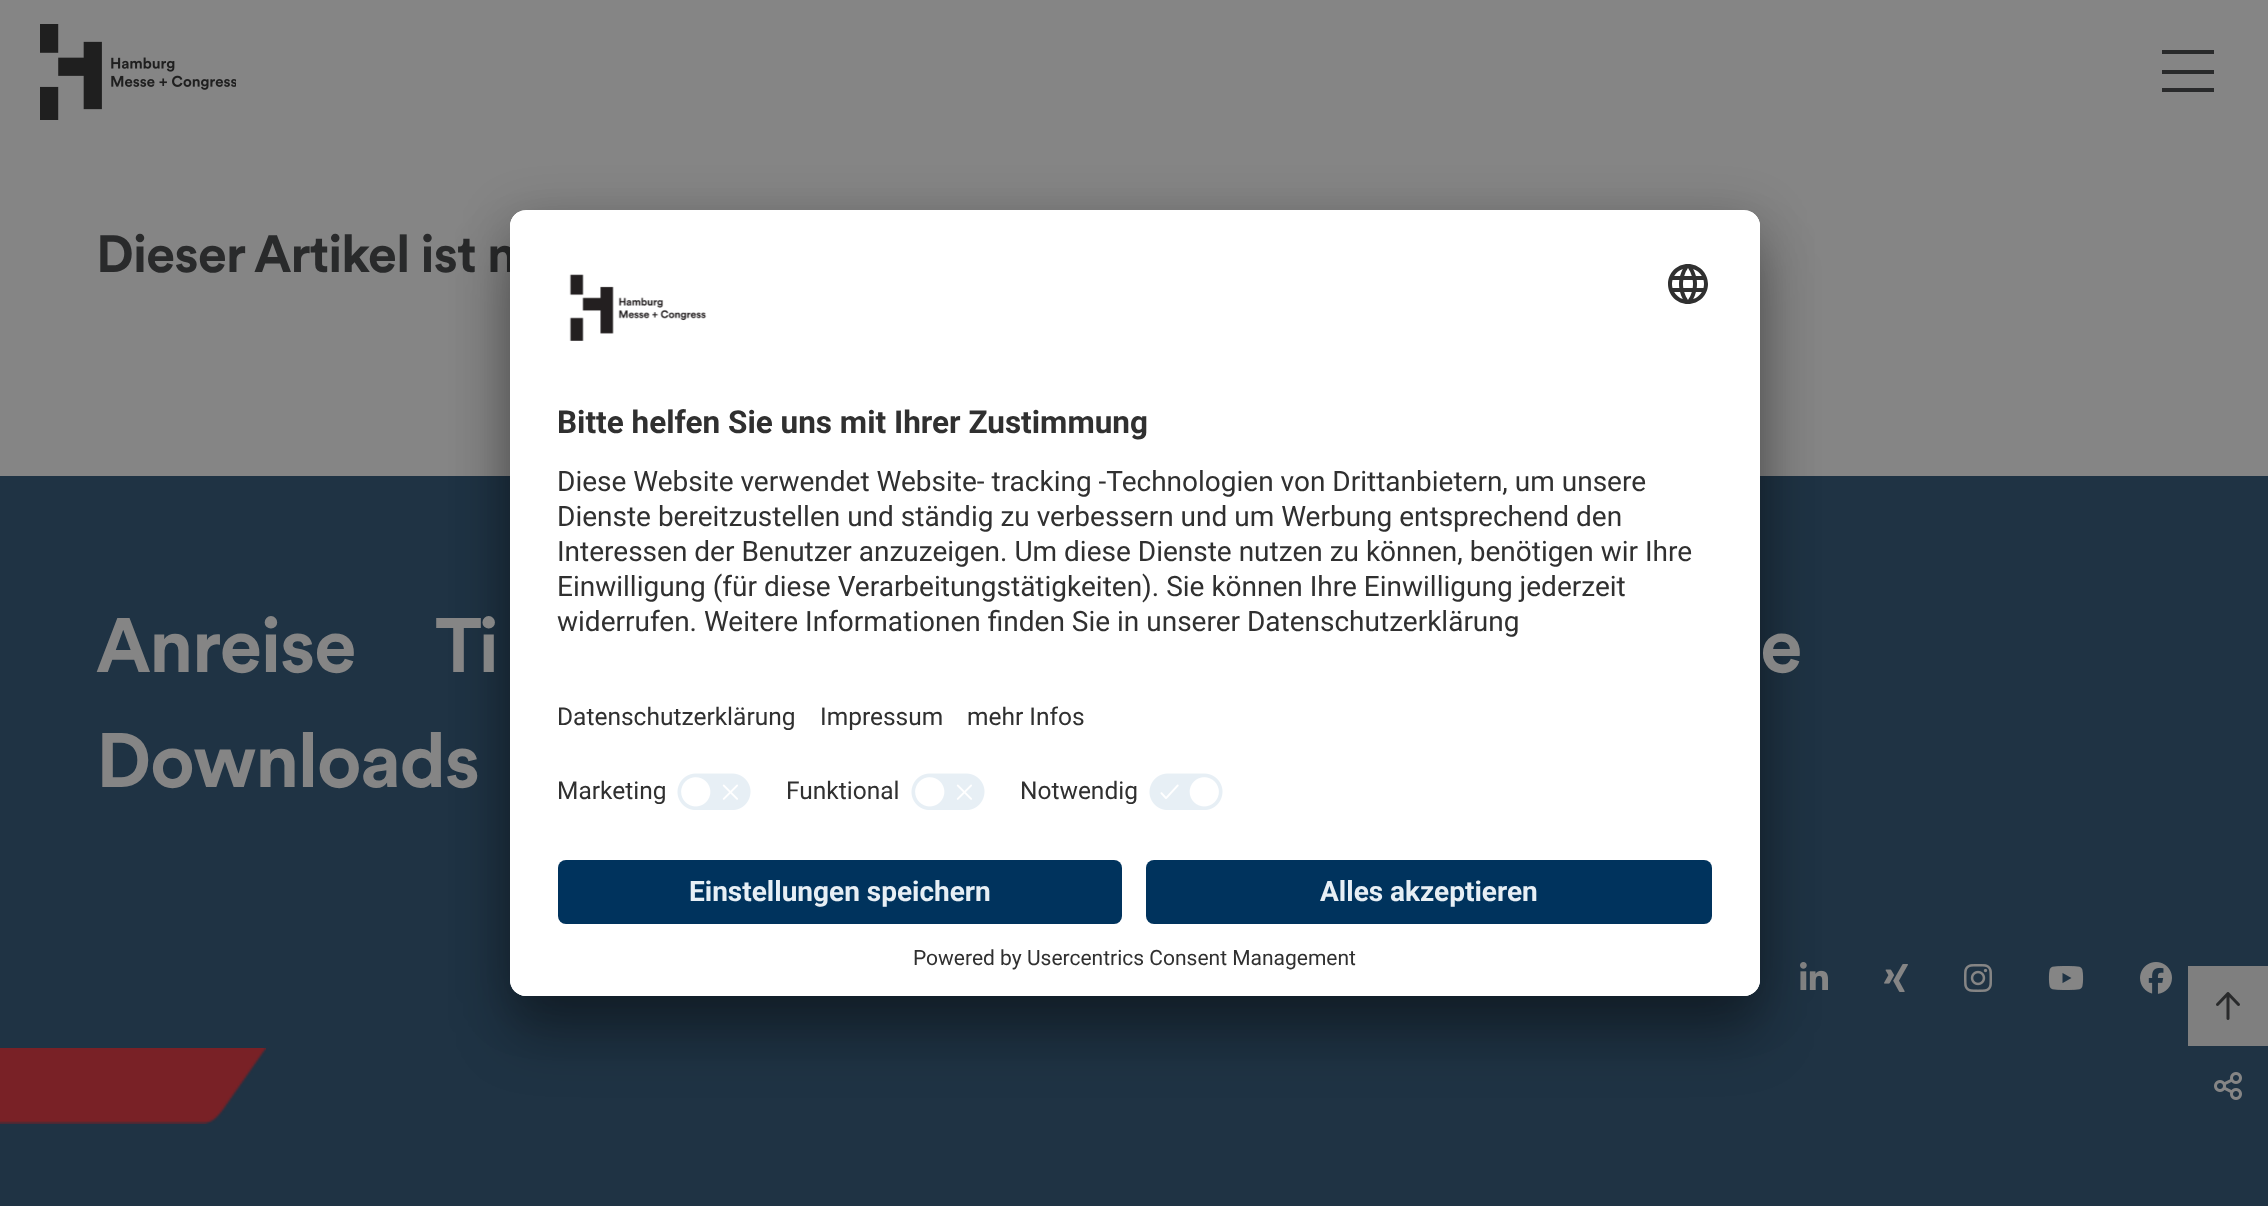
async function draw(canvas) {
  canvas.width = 2268
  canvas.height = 1206
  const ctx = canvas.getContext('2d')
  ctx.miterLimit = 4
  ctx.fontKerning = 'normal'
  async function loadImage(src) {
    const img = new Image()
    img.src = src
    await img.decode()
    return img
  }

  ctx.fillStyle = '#858585'
  ctx.fillRect(0, 0, 2268, 1206)
  ctx.drawImage(await loadImage('image0.png'), 40, 24, 196, 96)
  ctx.fillStyle = '#292a2b'
  ctx.fillRect(2162, 50, 52, 4)
  ctx.fillRect(2162, 70, 52, 4)
  ctx.fillRect(2162, 88, 52, 4)
  ctx.letterSpacing = '-1px'
  ctx.font = 'bold 52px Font'
  ctx.fillText('Dieser Artikel ist n', 96, 272)
  ctx.fillStyle = '#1f3344'
  ctx.fillRect(0, 476, 2268, 730)
  ctx.drawImage(await loadImage('image5.png'), 1800, 962, 28, 28)
  ctx.fillStyle = '#0000004d'
  ctx.filter = 'blur(28px)'
  ctx.beginPath()
  ctx.roundRect(510, 250, 1250, 786, 16)
  ctx.fill()
  ctx.filter = 'none'
  ctx.fillStyle = '#00000038'
  ctx.filter = 'blur(26px)'
  ctx.beginPath()
  ctx.roundRect(510, 220, 1250, 786, 16)
  ctx.fill()
  ctx.filter = 'none'
  ctx.fillStyle = '#fff'
  ctx.beginPath()
  ctx.roundRect(510, 210, 1250, 786, 16)
  ctx.fill()
  ctx.save()
  ctx.beginPath()
  ctx.roundRect(510, 210, 1250, 786, 16)
  ctx.clip()
  ctx.beginPath()
  ctx.roundRect(510, 210, 1250, 634, [16, 16, 0, 0])
  ctx.clip()
  ctx.fillRect(510, 212, 1250, 632)
  ctx.fillRect(510, 212, 1250, 552)
  ctx.restore()
  ctx.drawImage(await loadImage('image1.png'), 569, 274, 138, 67)
  ctx.drawImage(await loadImage('image2.png'), 1668, 264, 40, 40)
  ctx.letterSpacing = '0px'
  ctx.font = 'bold 31.5px Roboto'
  ctx.fillStyle = '#303030'
  ctx.fillText('Bitte helfen Sie uns mit Ihrer Zustimmung', 557, 433)
  ctx.font = '28px Roboto'
  ctx.fillText('Diese Website verwendet Website- tracking -Technologien von Drittanbietern, um unsere', 557, 491)
  ctx.fillText('Dienste bereitzustellen und ständig zu verbessern und um Werbung entsprechend den', 557, 526)
  ctx.fillText('Interessen der Benutzer anzuzeigen. Um diese Dienste nutzen zu können, benötigen wir Ihre', 557, 561)
  ctx.fillText('Einwilligung (für diese Verarbeitungstätigkeiten). Sie können Ihre Einwilligung jederzeit', 557, 596)
  ctx.fillText('widerrufen. Weitere Informationen finden Sie in unserer Datenschutzerklärung', 557, 631)
  ctx.font = '24.5px Roboto'
  ctx.fillText('Datenschutzerklärung', 557, 725)
  ctx.fillText('Impressum', 820, 725)
  ctx.fillText('mehr Infos', 967, 725)
  ctx.fillText('Marketing', 557, 799)
  ctx.drawImage(await loadImage('image3.png'), 677, 773, 74, 37)
  ctx.fillText('Funktional', 786, 799)
  ctx.drawImage(await loadImage('image3.png'), 911, 773, 74, 37)
  ctx.fillText('Notwendig', 1020, 799)
  ctx.drawImage(await loadImage('image4.png'), 1149, 773, 74, 37)
  ctx.fillStyle = '#fff'
  ctx.beginPath()
  ctx.roundRect(510, 844, 1250, 152, [0, 0, 16, 16])
  ctx.fill()
  ctx.fillStyle = '#00335d'
  ctx.beginPath()
  ctx.roundRect(558, 860, 564, 64, 8)
  ctx.fill()
  ctx.font = 'bold 28px Roboto'
  ctx.fillStyle = '#e7eff5'
  ctx.fillText('Einstellungen speichern', 689, 901)
  ctx.fillStyle = '#00335d'
  ctx.beginPath()
  ctx.roundRect(1146, 860, 566, 64, 8)
  ctx.fill()
  ctx.fillStyle = '#e7eff5'
  ctx.fillText('Alles akzeptieren', 1320, 901)
  ctx.font = '21px Roboto'
  ctx.fillStyle = '#303030'
  ctx.fillText('Powered by Usercentrics Consent Management', 913, 965)
  ctx.letterSpacing = '-1.5px'
  ctx.font = 'bold 76px Font'
  ctx.fillStyle = '#858585'
  ctx.fillText('Anreise', 96, 672)
  ctx.fillText('Ti', 435, 672)
  ctx.fillText('e', 1760, 672)
  ctx.fillText('Downloads', 96, 787)
  ctx.drawImage(await loadImage('image6.png'), 1884, 964, 24, 28)
  ctx.drawImage(await loadImage('image7.png'), 1964, 964, 28, 28)
  ctx.drawImage(await loadImage('image8.png'), 2048, 966, 36, 24)
  ctx.drawImage(await loadImage('image9.png'), 2140, 962, 32, 32)
  ctx.drawImage(await loadImage('image10.png'), 0, 1048, 266, 76)
  ctx.fillStyle = '#7f7f7f'
  ctx.fillRect(2188, 966, 80, 80)
  ctx.drawImage(await loadImage('image11.png'), 2216, 992, 24, 28)
  ctx.drawImage(await loadImage('image12.png'), 2214, 1072, 28, 28)
}

draw(document.querySelector('canvas'))
